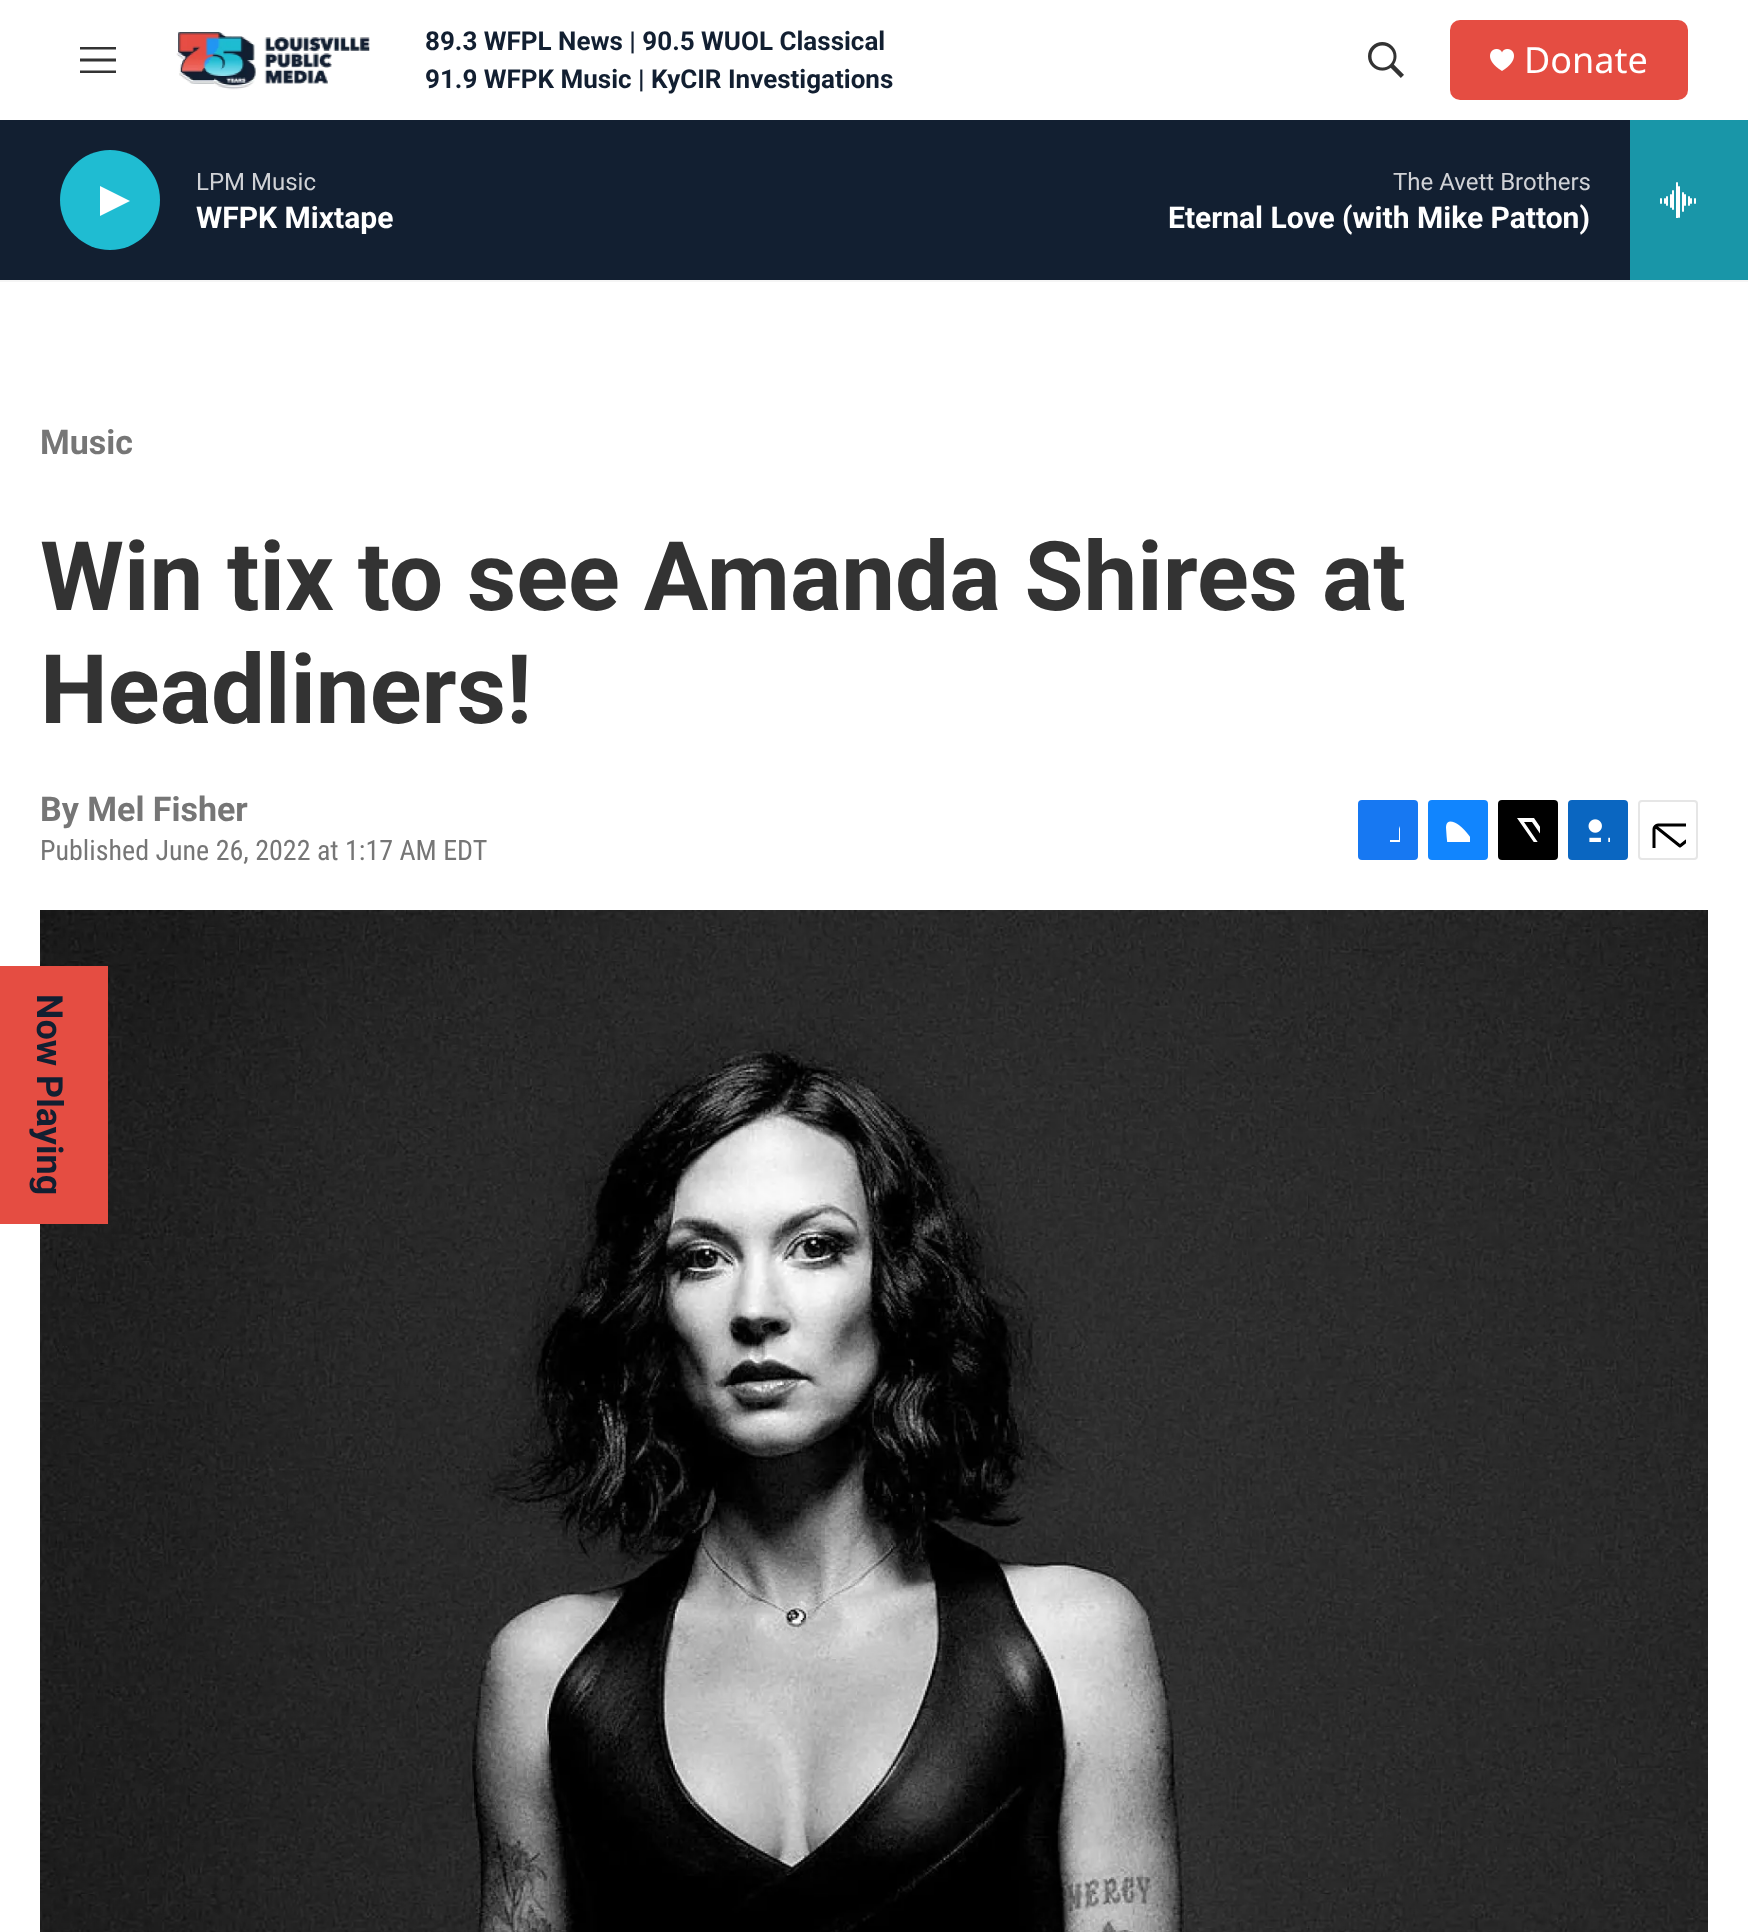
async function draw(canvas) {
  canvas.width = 1748
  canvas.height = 1932
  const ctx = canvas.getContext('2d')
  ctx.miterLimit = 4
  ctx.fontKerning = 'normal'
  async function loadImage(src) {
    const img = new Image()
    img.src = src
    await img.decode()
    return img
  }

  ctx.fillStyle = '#fff'
  ctx.fillRect(0, 0, 1748, 1932)
  ctx.fillStyle = '#f5f5f5'
  ctx.fillRect(0, 280, 1748, 2)
  ctx.fillStyle = '#333'
  ctx.beginPath()
  ctx.moveTo(80, 61.5)
  ctx.lineTo(80, 58.5)
  ctx.lineTo(116, 58.5)
  ctx.lineTo(116, 61.5)
  ctx.closePath()
  ctx.moveTo(80, 49.5)
  ctx.lineTo(80, 47)
  ctx.lineTo(116, 47)
  ctx.lineTo(116, 49.5)
  ctx.closePath()
  ctx.moveTo(80, 73)
  ctx.lineTo(80, 70.5)
  ctx.lineTo(116, 70.5)
  ctx.lineTo(116, 73)
  ctx.closePath()
  ctx.fill('evenodd')
  ctx.drawImage(await loadImage('image0.png'), 176, 31, 194, 59)
  ctx.font = 'bold 26px "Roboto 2"'
  ctx.fillStyle = '#121f31'
  ctx.fillText('89.3 WFPL News | 90.5 WUOL Classical', 425, 50)
  ctx.fillText('91.9 WFPK Music | KyCIR Investigations', 425, 88)
  ctx.drawImage(await loadImage('image1.png'), 1368, 42, 36, 36)
  ctx.fillStyle = '#e54d42'
  ctx.beginPath()
  ctx.roundRect(1450, 20, 238, 80, 10)
  ctx.fill()
  ctx.drawImage(await loadImage('image2.png'), 1490, 49, 24, 22)
  ctx.font = '36px Noto Sans'
  ctx.fillStyle = '#fff'
  ctx.fillText('Donate', 1524, 73)
  ctx.fillStyle = '#121f31'
  ctx.fillRect(0, 120, 1630, 160)
  ctx.fillStyle = '#1fbcd2'
  ctx.beginPath()
  ctx.arc(110, 200, 50, 0, 2 * Math.PI)
  ctx.fill()
  ctx.fillStyle = '#fff'
  ctx.beginPath()
  ctx.moveTo(100, 186)
  ctx.lineTo(130, 201)
  ctx.lineTo(100, 216)
  ctx.closePath()
  ctx.fill()
  ctx.font = '24px Roboto'
  ctx.fillStyle = '#d0d2d6'
  ctx.fillText('LPM Music', 196, 190)
  ctx.font = 'bold 30px "Roboto 2"'
  ctx.fillStyle = '#fff'
  ctx.fillText('WFPK Mixtape', 196, 228)
  ctx.save()
  ctx.beginPath()
  ctx.rect(1380, 164, 210, 36)
  ctx.clip()
  ctx.font = '24px Roboto'
  ctx.fillStyle = '#d0d2d6'
  ctx.fillText('The Avett Brothers', 1393, 190)
  ctx.restore()
  ctx.fillText('Eternal Love (with Mike Patton)', 1168, 228)
  ctx.fillStyle = '#1996a8'
  ctx.fillRect(1630, 120, 118, 160)
  ctx.drawImage(await loadImage('image3.png'), 1660, 182, 36, 36)
  ctx.font = 'bold 34px Roboto'
  ctx.fillStyle = '#767676'
  ctx.fillText('Music', 40, 454)
  ctx.font = 'bold 96px Roboto'
  ctx.fillStyle = '#333'
  ctx.fillText('Win tix to see Amanda Shires at', 40, 610)
  ctx.fillText('Headliners!', 40, 723)
  ctx.font = 'bold 34px Roboto'
  ctx.fillStyle = '#767676'
  ctx.fillText('By Mel Fisher', 40, 821)
  ctx.font = '28px Roboto Condensed'
  ctx.fillText('Published June 26, 2022 at 1:17 AM EDT', 40, 860)
  ctx.fillStyle = '#1778f2'
  ctx.beginPath()
  ctx.roundRect(1358, 800, 60, 60, 4)
  ctx.fill()
  ctx.save()
  ctx.beginPath()
  ctx.rect(1376, 818, 24, 24)
  ctx.clip()
  ctx.fillStyle = '#fff'
  ctx.beginPath()
  ctx.moveTo(1409, 860)
  ctx.lineTo(1399, 860)
  ctx.lineTo(1399, 850)
  ctx.lineTo(1390, 850)
  ctx.lineTo(1390, 840)
  ctx.lineTo(1399, 840)
  ctx.lineTo(1399, 829)
  ctx.bezierCurveTo(1401, 820, 1410, 818, 1418, 819)
  ctx.lineTo(1418, 828)
  ctx.bezierCurveTo(1407, 828, 1409, 831, 1409, 840)
  ctx.lineTo(1418, 840)
  ctx.lineTo(1418, 845)
  ctx.lineTo(1417, 850)
  ctx.lineTo(1409, 850)
  ctx.closePath()
  ctx.fill()
  ctx.restore()
  ctx.fillStyle = '#1185fe'
  ctx.beginPath()
  ctx.roundRect(1428, 800, 60, 60, 4)
  ctx.fill()
  ctx.drawImage(await loadImage('image4.png'), 1446, 821, 24, 21)
  ctx.fillStyle = '#000'
  ctx.beginPath()
  ctx.roundRect(1498, 800, 60, 60, 4)
  ctx.fill()
  ctx.save()
  ctx.beginPath()
  ctx.rect(1516, 818, 24, 24)
  ctx.clip()
  ctx.fillStyle = '#fff'
  ctx.beginPath()
  ctx.moveTo(1552, 843)
  ctx.lineTo(1558, 852)
  ctx.bezierCurveTo(1558, 854, 1559, 857, 1557, 858)
  ctx.lineTo(1532, 822)
  ctx.lineTo(1524, 822)
  ctx.lineTo(1550, 860)
  ctx.lineTo(1545, 860)
  ctx.lineTo(1542, 855)
  ctx.lineTo(1538, 860)
  ctx.lineTo(1532, 860)
  ctx.lineTo(1540, 851)
  ctx.lineTo(1517, 818)
  ctx.lineTo(1534, 818)
  ctx.lineTo(1549, 840)
  ctx.lineTo(1558, 830)
  ctx.lineTo(1558, 836)
  ctx.closePath()
  ctx.fill()
  ctx.restore()
  ctx.fillStyle = '#0a66c1'
  ctx.beginPath()
  ctx.roundRect(1568, 800, 60, 60, 4)
  ctx.fill()
  ctx.drawImage(await loadImage('image5.png'), 1588, 819, 22, 23)
  ctx.beginPath()
  ctx.roundRect(1639, 801, 58, 58, 3)
  ctx.strokeStyle = '#e6e6e6'
  ctx.lineWidth = 2
  ctx.stroke()
  ctx.save()
  ctx.beginPath()
  ctx.rect(1650, 812, 36, 36)
  ctx.clip()
  ctx.beginPath()
  ctx.moveTo(1706, 856)
  ctx.bezierCurveTo(1706, 858, 1704, 859.5, 1702, 859.5)
  ctx.lineTo(1658, 859.5)
  ctx.bezierCurveTo(1656, 859.5, 1654, 858, 1654, 856)
  ctx.lineTo(1654, 829)
  ctx.bezierCurveTo(1654, 827, 1656, 825, 1658, 825)
  ctx.lineTo(1702, 825)
  ctx.bezierCurveTo(1704, 825, 1706, 827, 1706, 829)
  ctx.closePath()
  ctx.moveTo(1704.5, 826.5)
  ctx.lineTo(1680, 846)
  ctx.lineTo(1655.5, 826.5)
  ctx.strokeStyle = '#000'
  ctx.lineWidth = 3
  ctx.lineCap = 'round'
  ctx.lineJoin = 'round'
  ctx.stroke()
  ctx.restore()
  ctx.drawImage(await loadImage('image6.png'), 40, 910, 1668, 1022)
  ctx.fillStyle = '#e54d42'
  ctx.fillRect(0, 966, 108, 258)
  ctx.font = 'bold 36px "Roboto 2"'
  ctx.fillStyle = '#121f31'
  ctx.save()
  ctx.translate(37, 994)
  ctx.rotate(90 * Math.PI / 180)
  ctx.fillText('Now Playing', 0, 0)
  ctx.restore()
}

draw(document.querySelector('canvas'))
